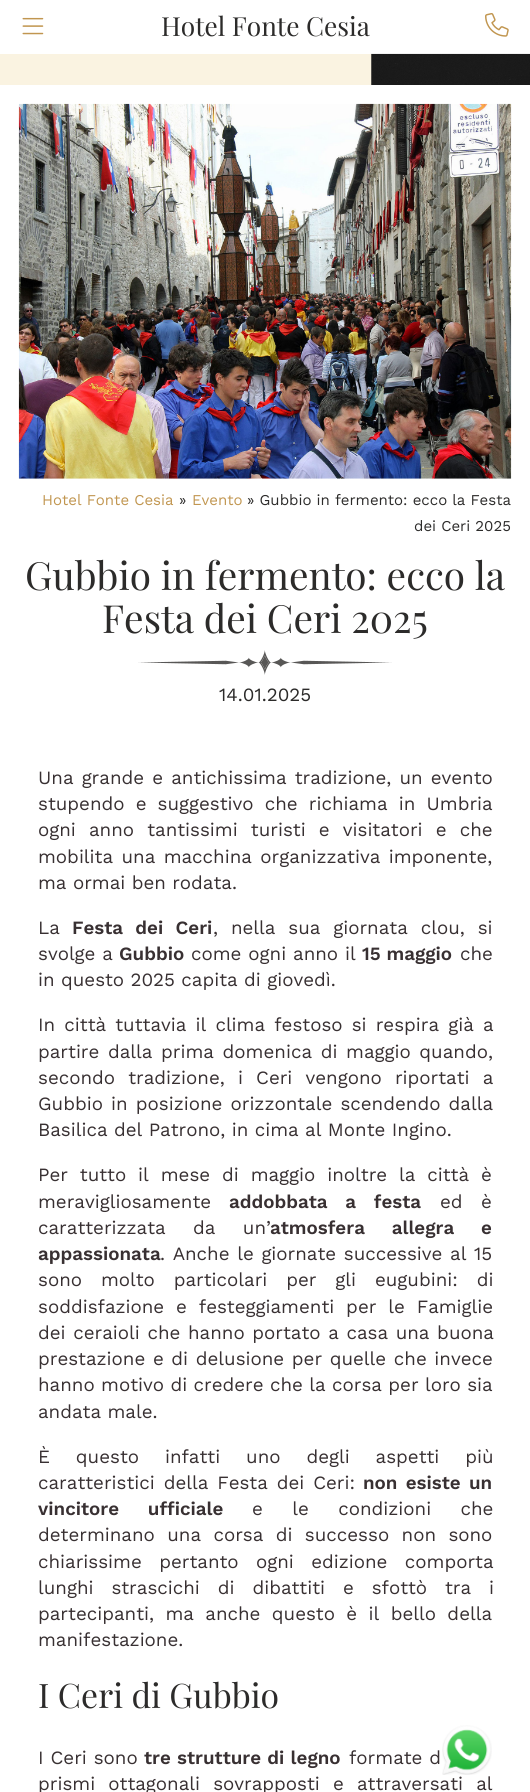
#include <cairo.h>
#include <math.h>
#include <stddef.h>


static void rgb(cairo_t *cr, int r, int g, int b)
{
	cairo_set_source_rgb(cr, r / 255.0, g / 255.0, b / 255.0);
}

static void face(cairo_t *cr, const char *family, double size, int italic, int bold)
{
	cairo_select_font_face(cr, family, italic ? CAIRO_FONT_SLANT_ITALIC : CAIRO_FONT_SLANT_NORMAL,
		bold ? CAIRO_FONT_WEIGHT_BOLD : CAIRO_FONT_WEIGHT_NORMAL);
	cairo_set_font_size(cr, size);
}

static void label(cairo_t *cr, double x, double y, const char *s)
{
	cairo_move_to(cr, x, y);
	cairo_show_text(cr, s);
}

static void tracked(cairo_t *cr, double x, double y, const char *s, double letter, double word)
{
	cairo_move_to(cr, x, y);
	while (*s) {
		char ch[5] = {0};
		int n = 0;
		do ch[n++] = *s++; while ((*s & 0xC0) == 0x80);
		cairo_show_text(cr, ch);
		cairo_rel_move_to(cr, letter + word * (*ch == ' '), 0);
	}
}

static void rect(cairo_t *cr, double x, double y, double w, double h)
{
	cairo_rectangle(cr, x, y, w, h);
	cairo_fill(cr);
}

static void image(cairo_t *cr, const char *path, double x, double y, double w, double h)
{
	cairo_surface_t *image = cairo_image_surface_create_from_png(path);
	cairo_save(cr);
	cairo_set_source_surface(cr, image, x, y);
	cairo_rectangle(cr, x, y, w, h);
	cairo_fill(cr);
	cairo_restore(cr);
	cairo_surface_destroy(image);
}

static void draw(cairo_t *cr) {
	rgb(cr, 255, 255, 255);
	cairo_paint(cr);
	image(cr, "image0.png", 22, 17, 22, 18);
	face(cr, "Playfair Display", 26.25, 0, 0);
	rgb(cr, 44, 43, 42);
	label(cr, 161, 36, "Hotel Fonte Cesia");
	image(cr, "image1.png", 485, 13, 24, 24);
	rgb(cr, 250, 243, 225);
	rect(cr, 0, 54, 372, 31);
	image(cr, "image2.png", 371, 53, 159, 32);
	image(cr, "image3.png", 18, 103, 494, 376);
	face(cr, "Work Sans", 15, 0, 0);
	rgb(cr, 193, 150, 80);
	label(cr, 42, 505, "Hotel Fonte Cesia");
	rgb(cr, 44, 43, 42);
	label(cr, 179, 505, "»");
	rgb(cr, 193, 150, 80);
	label(cr, 192, 505, "Evento");
	rgb(cr, 44, 43, 42);
	label(cr, 247, 505, "» Gubbio in fermento: ecco la Festa");
	label(cr, 414, 531, "dei Ceri 2025");
	face(cr, "Playfair Display", 38.75, 0, 0);
	label(cr, 25, 590, "Gubbio in fermento: ecco la");
	label(cr, 102, 633, "Festa dei Ceri 2025");
	image(cr, "image4.png", 138, 650, 254, 25);
	face(cr, "Work Sans", 18.75, 0, 0);
	label(cr, 219, 701, "14.01.2025");
	rgb(cr, 56, 48, 50);
	tracked(cr, 38, 784, "Una grande e antichissima tradizione, un evento", 0, 1.75);
	tracked(cr, 38, 810, "stupendo e suggestivo che richiama in Umbria", 0, 4.75);
	tracked(cr, 38, 836, "ogni anno tantissimi turisti e visitatori e che", 0, 6.75);
	tracked(cr, 38, 863, "mobilita una macchina organizzativa imponente,", 0, 2);
	label(cr, 38, 889, "ma ormai ben rodata.");
	label(cr, 38, 934, "La");
	face(cr, "Work Sans SemiBold", 18.75, 0, 0);
	tracked(cr, 72, 934, "Festa dei Ceri", 0, 6.5);
	face(cr, "Work Sans", 18.75, 0, 0);
	tracked(cr, 213, 934, ", nella sua giornata clou, si", 0, 6.5);
	tracked(cr, 38, 960, "svolge a", 0, 0.5);
	face(cr, "Work Sans SemiBold", 18.75, 0, 0);
	label(cr, 119, 960, "Gubbio");
	face(cr, "Work Sans", 18.75, 0, 0);
	tracked(cr, 191, 960, "come ogni anno il", 0, 0.5);
	face(cr, "Work Sans SemiBold", 18.75, 0, 0);
	label(cr, 362, 960, "15 maggio");
	face(cr, "Work Sans", 18.75, 0, 0);
	label(cr, 460, 960, "che");
	label(cr, 38, 986, "in questo 2025 capita di giovedì.");
	tracked(cr, 38, 1031, "In città tuttavia il clima festoso si respira già a", 0, 2.75);
	tracked(cr, 38, 1058, "partire dalla prima domenica di maggio quando,", 0, 2.25);
	tracked(cr, 38, 1084, "secondo tradizione, i Ceri vengono riportati a", 0, 6.75);
	tracked(cr, 38, 1110, "Gubbio in posizione orizzontale scendendo dalla", 0, 1.75);
	label(cr, 38, 1136, "Basilica del Patrono, in cima al Monte Ingino.");
	tracked(cr, 38, 1181, "Per tutto il mese di maggio inoltre la città è", 0, 5.5);
	label(cr, 38, 1208, "meravigliosamente");
	face(cr, "Work Sans SemiBold", 18.75, 0, 0);
	tracked(cr, 229, 1208, "addobbata a festa", 0, 12);
	face(cr, "Work Sans", 18.75, 0, 0);
	tracked(cr, 440, 1208, "ed è", 0, 12);
	tracked(cr, 38, 1234, "caratterizzata da un’", 0, 21);
	face(cr, "Work Sans SemiBold", 18.75, 0, 0);
	tracked(cr, 270, 1234, "atmosfera allegra e", 0, 21);
	label(cr, 38, 1260, "appassionata");
	face(cr, "Work Sans", 18.75, 0, 0);
	tracked(cr, 160, 1260, ". Anche le giornate successive al 15", 0, 1.25);
	tracked(cr, 38, 1286, "sono molto particolari per gli eugubini: di", 0, 12.5);
	tracked(cr, 38, 1313, "soddisfazione e festeggiamenti per le Famiglie", 0, 5.5);
	tracked(cr, 38, 1339, "dei ceraioli che hanno portato a casa una buona", 0, 1.25);
	tracked(cr, 38, 1365, "prestazione e di delusione per quelle che invece", 0, 1.25);
	label(cr, 38, 1391, "hanno motivo di credere che la corsa per loro sia");
	label(cr, 38, 1418, "andata male.");
	tracked(cr, 38, 1463, "È questo infatti uno degli aspetti più", 0, 19.5);
	tracked(cr, 38, 1489, "caratteristici della Festa dei Ceri:", 0, 2.5);
	face(cr, "Work Sans SemiBold", 18.75, 0, 0);
	tracked(cr, 363, 1489, "non esiste un", 0, 2.5);
	tracked(cr, 38, 1515, "vincitore ufficiale", 0, 23);
	face(cr, "Work Sans", 18.75, 0, 0);
	tracked(cr, 252, 1515, "e le condizioni che", 0, 23);
	tracked(cr, 38, 1541, "determinano una corsa di successo non sono", 0, 6);
	tracked(cr, 38, 1568, "chiarissime pertanto ogni edizione comporta", 0, 11);
	tracked(cr, 38, 1594, "lunghi strascichi di dibattiti e sfottò tra i", 0, 11.5);
	tracked(cr, 38, 1620, "partecipanti, ma anche questo è il bello della", 0, 5);
	label(cr, 38, 1646, "manifestazione.");
	face(cr, "Playfair Display", 33.75, 0, 0);
	rgb(cr, 44, 43, 42);
	label(cr, 38, 1708, "I Ceri di Gubbio");
	face(cr, "Work Sans", 18.75, 0, 0);
	rgb(cr, 56, 48, 50);
	tracked(cr, 38, 1764, "I Ceri sono", 0, 0.5);
	face(cr, "Work Sans SemiBold", 18.75, 0, 0);
	tracked(cr, 144, 1764, "tre strutture di legno", 0, 0.5);
	face(cr, "Work Sans", 18.75, 0, 0);
	tracked(cr, 349, 1764, "formate d", 0, 0.5);
	tracked(cr, 38, 1790, "prismi ottagonali sovrapposti e attraversati al", 0, 6.75);
	image(cr, "image5.png", 442, 1725, 50, 50);
}

int main(void) {
	cairo_surface_t *surface = cairo_image_surface_create(CAIRO_FORMAT_RGB24, 530, 1792);
	cairo_t *cr = cairo_create(surface);
	cairo_font_options_t *options = cairo_font_options_create();
	cairo_font_options_set_hint_metrics(options, CAIRO_HINT_METRICS_OFF);
	cairo_font_options_set_hint_style(options, CAIRO_HINT_STYLE_NONE);
	cairo_set_font_options(cr, options);
	cairo_set_miter_limit(cr, 4);
	draw(cr);
	cairo_surface_write_to_png(surface, "render.png");
	cairo_font_options_destroy(options);
	cairo_destroy(cr);
	cairo_surface_destroy(surface);
	return 0;
}
